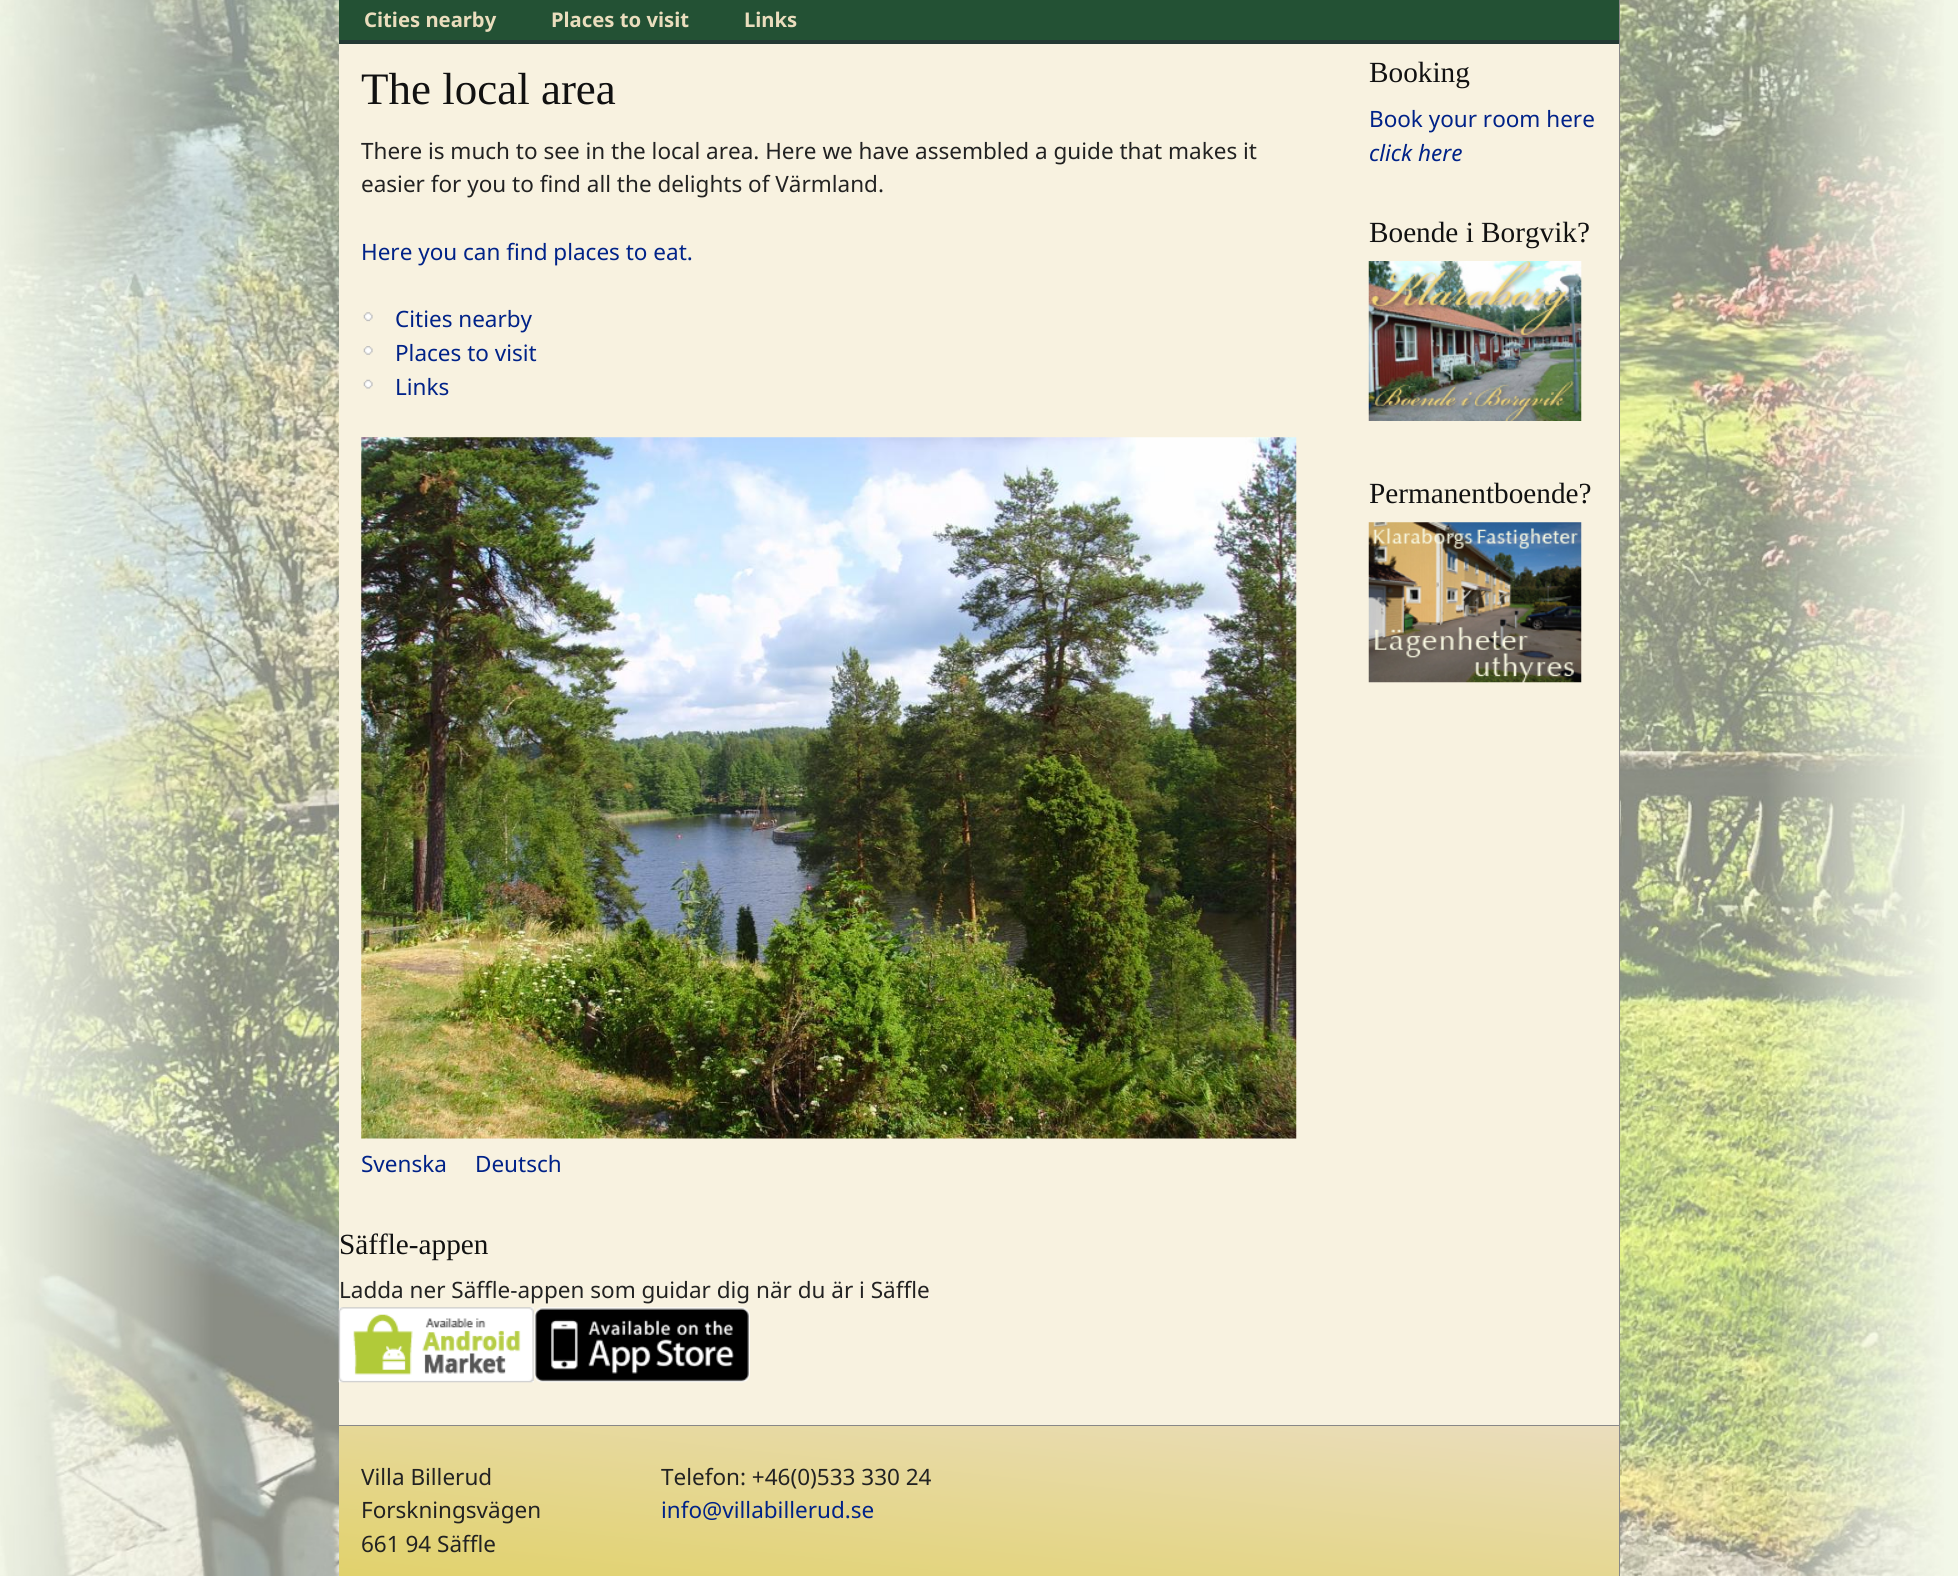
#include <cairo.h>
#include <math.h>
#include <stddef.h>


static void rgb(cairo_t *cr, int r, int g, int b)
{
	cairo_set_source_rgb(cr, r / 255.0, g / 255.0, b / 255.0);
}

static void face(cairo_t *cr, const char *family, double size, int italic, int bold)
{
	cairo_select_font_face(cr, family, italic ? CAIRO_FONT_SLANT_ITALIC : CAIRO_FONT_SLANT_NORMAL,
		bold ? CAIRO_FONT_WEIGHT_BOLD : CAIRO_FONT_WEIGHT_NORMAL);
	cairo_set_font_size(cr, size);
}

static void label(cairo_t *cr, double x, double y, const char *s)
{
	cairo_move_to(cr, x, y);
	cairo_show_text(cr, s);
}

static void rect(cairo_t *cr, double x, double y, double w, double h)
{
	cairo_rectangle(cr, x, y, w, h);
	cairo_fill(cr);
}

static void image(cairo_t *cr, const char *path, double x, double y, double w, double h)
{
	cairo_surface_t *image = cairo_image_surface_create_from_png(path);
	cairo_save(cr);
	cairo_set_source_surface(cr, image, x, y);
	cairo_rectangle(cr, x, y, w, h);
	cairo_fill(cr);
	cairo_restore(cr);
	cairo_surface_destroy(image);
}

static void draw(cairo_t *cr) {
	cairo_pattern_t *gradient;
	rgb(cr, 242, 247, 232);
	cairo_paint(cr);
	image(cr, "image0.png", 0, 0, 1944, 1576);
	rgb(cr, 136, 136, 136);
	rect(cr, 1619, 0, 1, 1576);
	rgb(cr, 35, 81, 52);
	rect(cr, 339, 0, 1280, 40);
	rgb(cr, 36, 57, 52);
	rect(cr, 339, 40, 1280, 4);
	face(cr, "Noto Sans", 20.25, 0, 1);
	rgb(cr, 234, 221, 189);
	label(cr, 364, 27, "Cities nearby");
	label(cr, 551, 27, "Places to visit");
	label(cr, 744, 27, "Links");
	rgb(cr, 248, 242, 224);
	rect(cr, 339, 44, 1280, 1381);
	face(cr, "Liberation Serif", 45, 0, 0);
	rgb(cr, 17, 17, 17);
	label(cr, 361, 104, "The local area");
	face(cr, "Noto Sans", 22.5, 0, 0);
	rgb(cr, 34, 34, 34);
	label(cr, 361, 159, "There is much to see in the local area. Here we have assembled a guide that makes it");
	label(cr, 361, 192, "easier for you to find all the delights of Värmland.");
	rgb(cr, 0, 34, 136);
	label(cr, 361, 260, "Here you can find places to eat.");
	image(cr, "image1.png", 363, 312, 10, 10);
	label(cr, 395, 327, "Cities nearby");
	image(cr, "image2.png", 363, 346, 10, 9);
	label(cr, 395, 361, "Places to visit");
	image(cr, "image3.png", 363, 379, 10, 10);
	label(cr, 395, 395, "Links");
	image(cr, "image4.png", 361, 437, 936, 702);
	label(cr, 361, 1172, "Svenska");
	label(cr, 475, 1172, "Deutsch");
	face(cr, "Liberation Serif", 29.25, 0, 0);
	rgb(cr, 17, 17, 17);
	label(cr, 339, 1254, "Säffle-appen");
	face(cr, "Noto Sans", 22.5, 0, 0);
	rgb(cr, 34, 34, 34);
	label(cr, 339, 1298, "Ladda ner Säffle-appen som guidar dig när du är i Säffle");
	image(cr, "image5.png", 338, 1307, 196, 76);
	image(cr, "image6.png", 533, 1307, 217, 76);
	face(cr, "Liberation Serif", 29.25, 0, 0);
	rgb(cr, 17, 17, 17);
	label(cr, 1369, 82, "Booking");
	face(cr, "Noto Sans", 22.5, 0, 0);
	rgb(cr, 0, 34, 136);
	label(cr, 1369, 127, "Book your room here");
	face(cr, "Noto Sans", 22.5, 1, 0);
	label(cr, 1369, 161, "click here");
	face(cr, "Liberation Serif", 29.25, 0, 0);
	rgb(cr, 17, 17, 17);
	label(cr, 1369, 242, "Boende i Borgvik?");
	image(cr, "image7.png", 1368, 261, 214, 160);
	label(cr, 1369, 503, "Permanentboende?");
	image(cr, "image8.png", 1368, 522, 214, 161);
	gradient = cairo_pattern_create_linear(962, 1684, 996, 1361);
	cairo_pattern_add_color_stop_rgba(gradient, 0, 0.878, 0.816, 0.376, 1);
	cairo_pattern_add_color_stop_rgba(gradient, 1, 0.918, 0.867, 0.741, 1);
	cairo_set_source(cr, gradient);
	cairo_pattern_destroy(gradient);
	rect(cr, 339, 1426, 1280, 150);
	rgb(cr, 136, 136, 136);
	rect(cr, 339, 1425, 1280, 1);
	face(cr, "Noto Sans", 22.5, 0, 0);
	rgb(cr, 34, 34, 34);
	label(cr, 361, 1485, "Villa Billerud");
	label(cr, 361, 1518, "Forskningsvägen");
	label(cr, 361, 1552, "661 94 Säffle");
	label(cr, 661, 1485, "Telefon: +46(0)533 330 24");
	rgb(cr, 0, 34, 136);
	label(cr, 661, 1518, "info@villabillerud.se");
}

int main(void) {
	cairo_surface_t *surface = cairo_image_surface_create(CAIRO_FORMAT_RGB24, 1958, 1576);
	cairo_t *cr = cairo_create(surface);
	cairo_font_options_t *options = cairo_font_options_create();
	cairo_font_options_set_hint_metrics(options, CAIRO_HINT_METRICS_OFF);
	cairo_font_options_set_hint_style(options, CAIRO_HINT_STYLE_NONE);
	cairo_set_font_options(cr, options);
	cairo_set_miter_limit(cr, 4);
	draw(cr);
	cairo_surface_write_to_png(surface, "render.png");
	cairo_font_options_destroy(options);
	cairo_destroy(cr);
	cairo_surface_destroy(surface);
	return 0;
}
